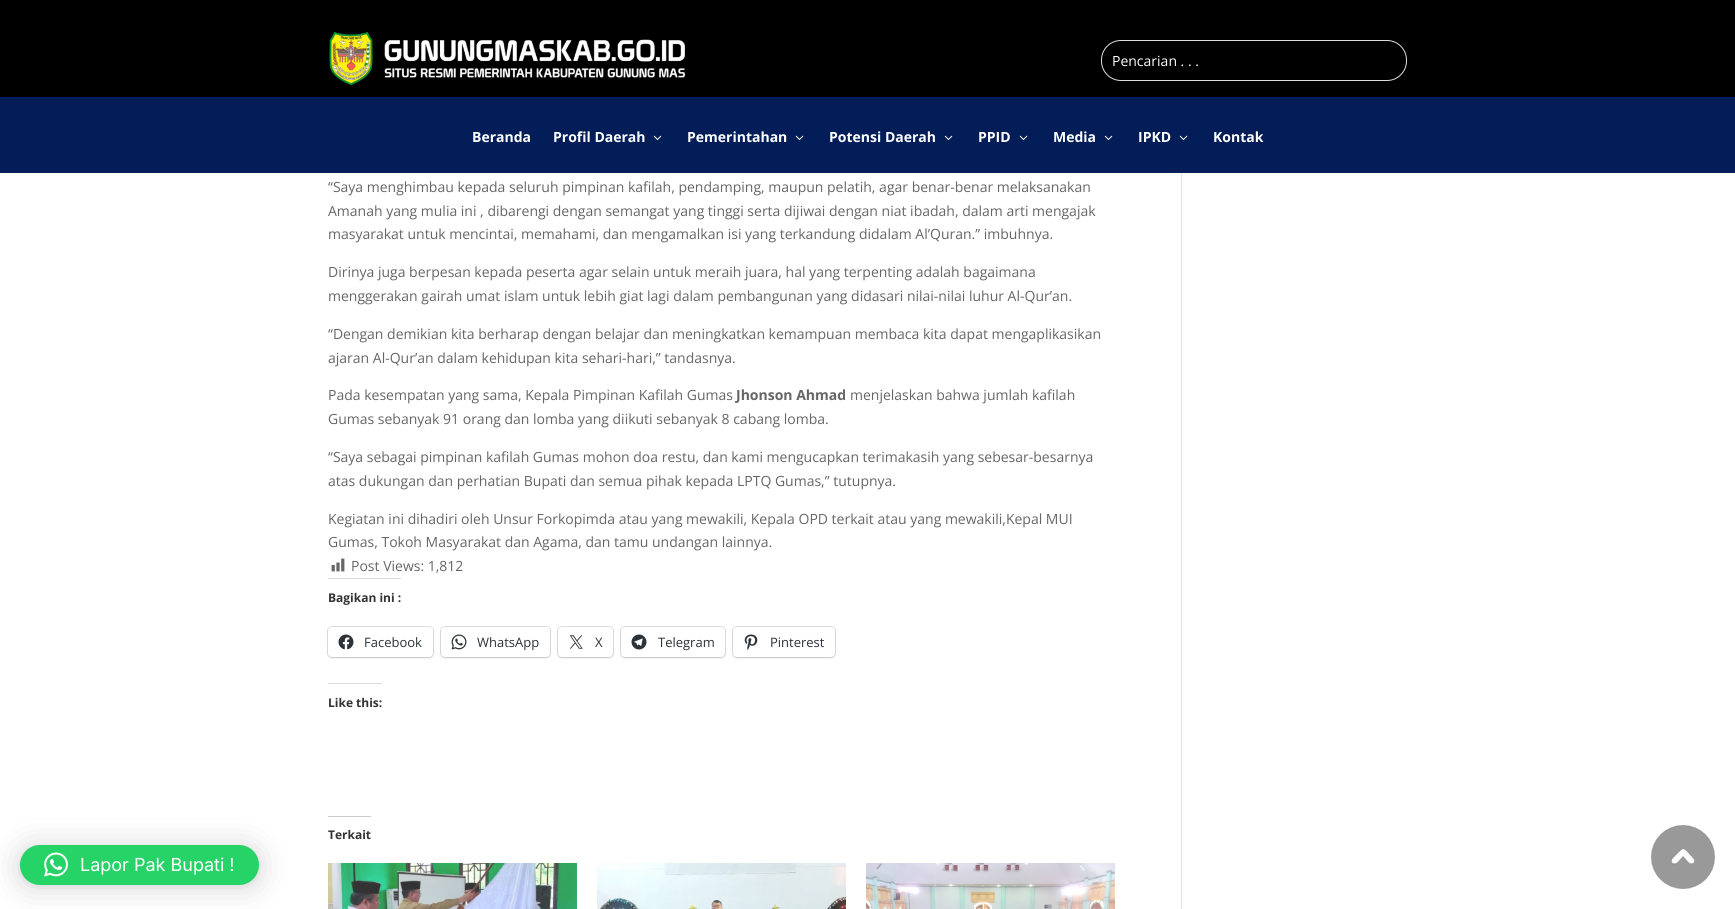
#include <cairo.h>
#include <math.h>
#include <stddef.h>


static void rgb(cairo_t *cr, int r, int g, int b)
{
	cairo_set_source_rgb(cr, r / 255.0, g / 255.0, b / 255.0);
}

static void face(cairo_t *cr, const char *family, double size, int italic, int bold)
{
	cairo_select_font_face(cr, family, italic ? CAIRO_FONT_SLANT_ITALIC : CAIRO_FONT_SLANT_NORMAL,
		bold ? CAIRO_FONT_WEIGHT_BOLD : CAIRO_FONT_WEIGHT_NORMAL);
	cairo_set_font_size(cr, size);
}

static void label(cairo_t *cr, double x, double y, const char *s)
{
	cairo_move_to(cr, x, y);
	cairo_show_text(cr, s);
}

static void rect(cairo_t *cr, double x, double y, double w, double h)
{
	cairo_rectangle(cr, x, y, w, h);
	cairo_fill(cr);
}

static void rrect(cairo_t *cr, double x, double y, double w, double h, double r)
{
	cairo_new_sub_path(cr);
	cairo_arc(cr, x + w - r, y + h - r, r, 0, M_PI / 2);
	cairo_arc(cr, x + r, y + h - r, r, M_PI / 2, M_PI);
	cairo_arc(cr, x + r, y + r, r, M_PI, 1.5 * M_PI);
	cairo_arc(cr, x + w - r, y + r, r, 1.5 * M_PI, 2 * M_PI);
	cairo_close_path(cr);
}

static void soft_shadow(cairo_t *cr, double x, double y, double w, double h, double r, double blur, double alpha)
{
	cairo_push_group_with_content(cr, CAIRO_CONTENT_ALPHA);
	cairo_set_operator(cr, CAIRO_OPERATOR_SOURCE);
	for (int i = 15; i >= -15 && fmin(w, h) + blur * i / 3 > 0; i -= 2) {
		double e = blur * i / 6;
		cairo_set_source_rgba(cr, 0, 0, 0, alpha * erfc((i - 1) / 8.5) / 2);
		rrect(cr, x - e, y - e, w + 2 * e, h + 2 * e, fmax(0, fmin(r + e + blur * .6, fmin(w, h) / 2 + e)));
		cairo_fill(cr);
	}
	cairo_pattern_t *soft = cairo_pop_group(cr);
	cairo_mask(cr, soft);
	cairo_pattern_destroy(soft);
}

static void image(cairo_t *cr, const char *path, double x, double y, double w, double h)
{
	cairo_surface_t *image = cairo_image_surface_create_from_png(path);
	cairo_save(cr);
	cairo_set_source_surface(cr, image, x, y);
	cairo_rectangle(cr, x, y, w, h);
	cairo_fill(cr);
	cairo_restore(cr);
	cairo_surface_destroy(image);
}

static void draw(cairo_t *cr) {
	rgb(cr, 255, 255, 255);
	cairo_paint(cr);
	rgb(cr, 0, 0, 0);
	rect(cr, 0, 0, 1735, 97);
	image(cr, "image0.png", 329, 31, 356, 55);
	rrect(cr, 1101.5, 40.5, 305, 40, 19.5);
	rgb(cr, 221, 221, 221);
	cairo_set_line_width(cr, 1);
	cairo_stroke(cr);
	face(cr, "Open Sans", 14, 0, 0);
	rgb(cr, 255, 255, 255);
	label(cr, 1112, 66, "Pencarian . . .");
	rgb(cr, 3, 29, 89);
	rect(cr, 0, 97, 1735, 76);
	face(cr, "Open Sans", 14, 0, 1);
	rgb(cr, 255, 255, 255);
	label(cr, 472, 142, "Beranda");
	label(cr, 553, 142, "Profil Daerah");
	image(cr, "image1.png", 653, 135, 9, 5);
	label(cr, 687, 142, "Pemerintahan");
	image(cr, "image1.png", 795, 135, 9, 5);
	label(cr, 829, 142, "Potensi Daerah");
	image(cr, "image1.png", 944, 135, 9, 5);
	label(cr, 978, 142, "PPID");
	image(cr, "image1.png", 1019, 135, 9, 5);
	label(cr, 1053, 142, "Media");
	image(cr, "image1.png", 1104, 135, 9, 5);
	label(cr, 1138, 142, "IPKD");
	image(cr, "image1.png", 1179, 135, 9, 5);
	label(cr, 1213, 142, "Kontak");
	face(cr, "Open Sans", 14, 0, 0);
	rgb(cr, 102, 102, 102);
	label(cr, 328, 192, "“Saya menghimbau kepada seluruh pimpinan kafilah, pendamping, maupun pelatih, agar benar-benar melaksanakan");
	label(cr, 328, 216, "Amanah yang mulia ini , dibarengi dengan semangat yang tinggi serta dijiwai dengan niat ibadah, dalam arti mengajak");
	label(cr, 328, 239, "masyarakat untuk mencintai, memahami, dan mengamalkan isi yang terkandung didalam Al’Quran.” imbuhnya.");
	label(cr, 328, 277, "Dirinya juga berpesan kepada peserta agar selain untuk meraih juara, hal yang terpenting adalah bagaimana");
	label(cr, 328, 301, "menggerakan gairah umat islam untuk lebih giat lagi dalam pembangunan yang didasari nilai-nilai luhur Al-Qur’an.");
	label(cr, 328, 339, "“Dengan demikian kita berharap dengan belajar dan meningkatkan kemampuan membaca kita dapat mengaplikasikan");
	label(cr, 328, 363, "ajaran Al-Qur’an dalam kehidupan kita sehari-hari,” tandasnya.");
	label(cr, 328, 400, "Pada kesempatan yang sama, Kepala Pimpinan Kafilah Gumas");
	face(cr, "Open Sans", 14, 0, 1);
	label(cr, 736, 400, "Jhonson Ahmad");
	face(cr, "Open Sans", 14, 0, 0);
	label(cr, 850, 400, "menjelaskan bahwa jumlah kafilah");
	label(cr, 328, 424, "Gumas sebanyak 91 orang dan lomba yang diikuti sebanyak 8 cabang lomba.");
	label(cr, 328, 462, "“Saya sebagai pimpinan kafilah Gumas mohon doa restu, dan kami mengucapkan terimakasih yang sebesar-besarnya");
	label(cr, 328, 486, "atas dukungan dan perhatian Bupati dan semua pihak kepada LPTQ Gumas,” tutupnya.");
	label(cr, 328, 524, "Kegiatan ini dihadiri oleh Unsur Forkopimda atau yang mewakili, Kepala OPD terkait atau yang mewakili,Kepal MUI");
	label(cr, 328, 547, "Gumas, Tokoh Masyarakat dan Agama, dan tamu undangan lainnya.");
	image(cr, "image2.png", 331, 558, 14, 14);
	label(cr, 351, 571, "Post Views: 1,812");
	rgb(cr, 220, 220, 222);
	rect(cr, 328, 578, 73, 1);
	face(cr, "Open Sans", 12, 0, 1);
	rgb(cr, 51, 51, 51);
	label(cr, 328, 602, "Bagikan ini :");
	rrect(cr, 327.5, 626.5, 106, 31, 4.5);
	rgb(cr, 224, 224, 224);
	cairo_stroke(cr);
	rgb(cr, 0, 0, 0);
	soft_shadow(cr, 328, 628, 105, 30, 4, 1, 0.12);
	rgb(cr, 255, 255, 255);
	rrect(cr, 328, 627, 105, 30, 4);
	cairo_fill(cr);
	image(cr, "image3.png", 338, 634, 16, 16);
	face(cr, "Open Sans", 13, 0, 0);
	rgb(cr, 44, 51, 56);
	label(cr, 364, 647, "Facebook");
	rrect(cr, 440.5, 626.5, 110, 31, 4.5);
	rgb(cr, 224, 224, 224);
	cairo_stroke(cr);
	rgb(cr, 0, 0, 0);
	soft_shadow(cr, 441, 628, 109, 30, 4, 1, 0.12);
	rgb(cr, 255, 255, 255);
	rrect(cr, 441, 627, 109, 30, 4);
	cairo_fill(cr);
	image(cr, "image4.png", 451, 634, 16, 16);
	rgb(cr, 44, 51, 56);
	label(cr, 477, 647, "WhatsApp");
	rrect(cr, 557.5, 626.5, 56, 31, 4.5);
	rgb(cr, 224, 224, 224);
	cairo_stroke(cr);
	rgb(cr, 0, 0, 0);
	soft_shadow(cr, 558, 628, 55, 30, 4, 1, 0.12);
	rgb(cr, 255, 255, 255);
	rrect(cr, 558, 627, 55, 30, 4);
	cairo_fill(cr);
	image(cr, "image5.png", 569, 635, 14, 14);
	rgb(cr, 44, 51, 56);
	label(cr, 595, 647, "X");
	rrect(cr, 620.5, 626.5, 105, 31, 4.5);
	rgb(cr, 224, 224, 224);
	cairo_stroke(cr);
	rgb(cr, 0, 0, 0);
	soft_shadow(cr, 621, 628, 104, 30, 4, 1, 0.12);
	rgb(cr, 255, 255, 255);
	rrect(cr, 621, 627, 104, 30, 4);
	cairo_fill(cr);
	image(cr, "image6.png", 631, 634, 16, 16);
	rgb(cr, 44, 51, 56);
	label(cr, 658, 647, "Telegram");
	rrect(cr, 732.5, 626.5, 103, 31, 4.5);
	rgb(cr, 224, 224, 224);
	cairo_stroke(cr);
	rgb(cr, 0, 0, 0);
	soft_shadow(cr, 733, 628, 102, 30, 4, 1, 0.12);
	rgb(cr, 255, 255, 255);
	rrect(cr, 733, 627, 102, 30, 4);
	cairo_fill(cr);
	image(cr, "image7.png", 744, 634, 14, 16);
	rgb(cr, 44, 51, 56);
	label(cr, 770, 647, "Pinterest");
	rgb(cr, 220, 220, 222);
	rect(cr, 328, 683, 54, 1);
	face(cr, "Open Sans", 12, 0, 1);
	rgb(cr, 51, 51, 51);
	label(cr, 328, 707, "Like this:");
	rgb(cr, 204, 204, 204);
	rect(cr, 328, 816, 43, 1);
	rgb(cr, 51, 51, 51);
	label(cr, 328, 839, "Terkait");
	image(cr, "image8.png", 328, 863, 249, 46);
	image(cr, "image9.png", 597, 863, 249, 46);
	image(cr, "image10.png", 866, 863, 249, 46);
	rgb(cr, 226, 226, 226);
	rect(cr, 1181, 173, 1, 736);
	rgb(cr, 0, 0, 0);
	soft_shadow(cr, 20, 847, 239, 40, 20, 16, 0.16);
	soft_shadow(cr, 20, 846, 239, 40, 20, 3, 0.06);
	rgb(cr, 37, 211, 102);
	rrect(cr, 20, 845, 239, 40, 20);
	cairo_fill(cr);
	image(cr, "image11.png", 44, 852, 24, 25);
	face(cr, "Inter", 18, 0, 0);
	rgb(cr, 255, 255, 255);
	label(cr, 80, 871, "Lapor Pak Bupati !");
	image(cr, "image12.png", 1651, 825, 64, 64);
}

int main(void) {
	cairo_surface_t *surface = cairo_image_surface_create(CAIRO_FORMAT_RGB24, 1735, 909);
	cairo_t *cr = cairo_create(surface);
	cairo_font_options_t *options = cairo_font_options_create();
	cairo_font_options_set_hint_metrics(options, CAIRO_HINT_METRICS_OFF);
	cairo_font_options_set_hint_style(options, CAIRO_HINT_STYLE_NONE);
	cairo_set_font_options(cr, options);
	cairo_set_miter_limit(cr, 4);
	draw(cr);
	cairo_surface_write_to_png(surface, "render.png");
	cairo_font_options_destroy(options);
	cairo_destroy(cr);
	cairo_surface_destroy(surface);
	return 0;
}
